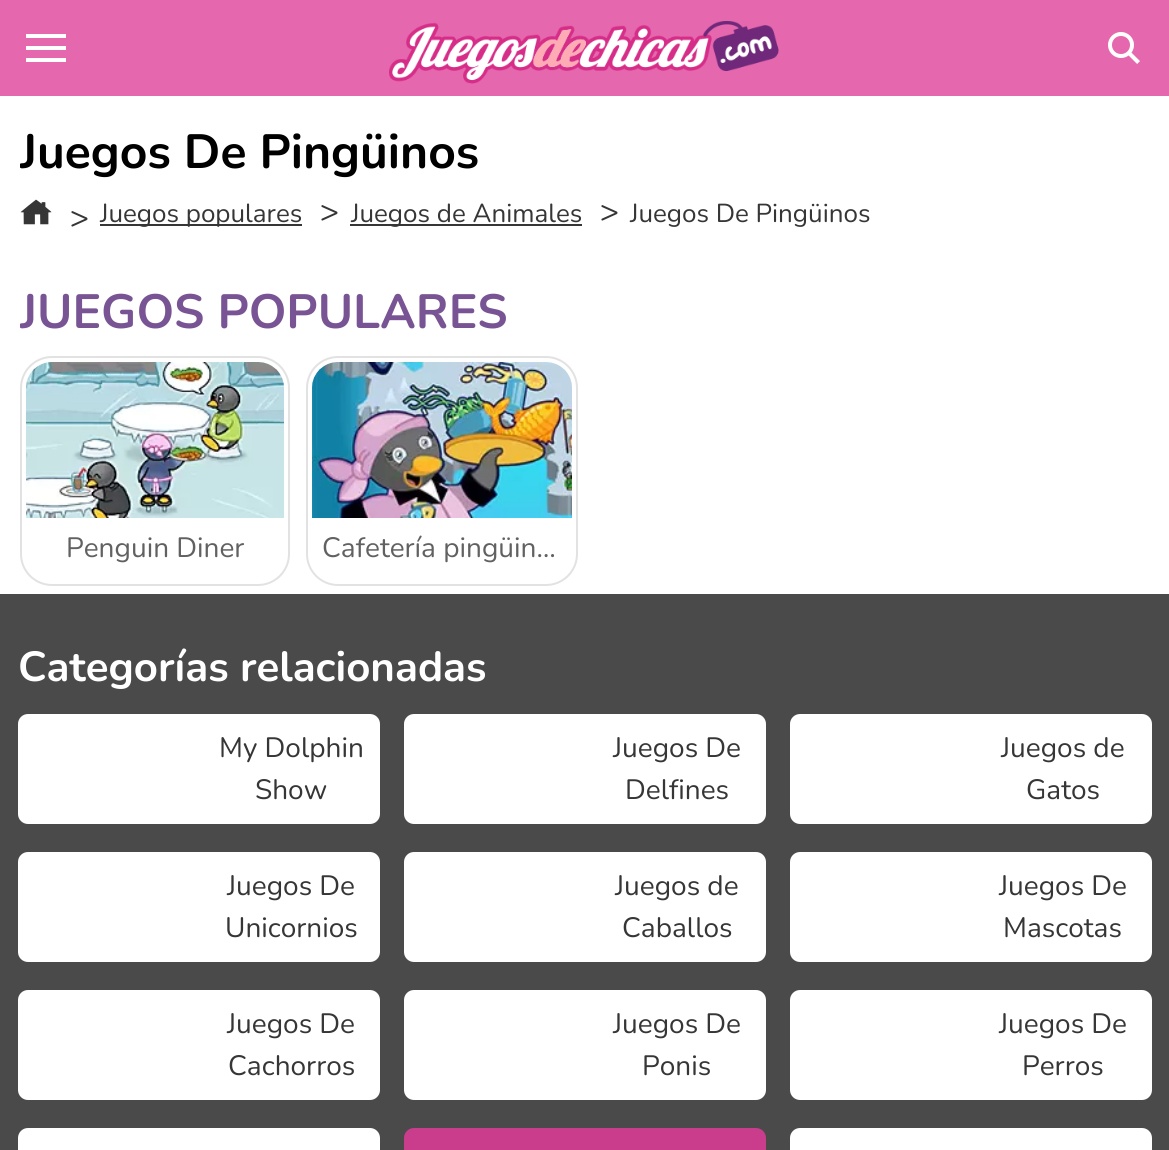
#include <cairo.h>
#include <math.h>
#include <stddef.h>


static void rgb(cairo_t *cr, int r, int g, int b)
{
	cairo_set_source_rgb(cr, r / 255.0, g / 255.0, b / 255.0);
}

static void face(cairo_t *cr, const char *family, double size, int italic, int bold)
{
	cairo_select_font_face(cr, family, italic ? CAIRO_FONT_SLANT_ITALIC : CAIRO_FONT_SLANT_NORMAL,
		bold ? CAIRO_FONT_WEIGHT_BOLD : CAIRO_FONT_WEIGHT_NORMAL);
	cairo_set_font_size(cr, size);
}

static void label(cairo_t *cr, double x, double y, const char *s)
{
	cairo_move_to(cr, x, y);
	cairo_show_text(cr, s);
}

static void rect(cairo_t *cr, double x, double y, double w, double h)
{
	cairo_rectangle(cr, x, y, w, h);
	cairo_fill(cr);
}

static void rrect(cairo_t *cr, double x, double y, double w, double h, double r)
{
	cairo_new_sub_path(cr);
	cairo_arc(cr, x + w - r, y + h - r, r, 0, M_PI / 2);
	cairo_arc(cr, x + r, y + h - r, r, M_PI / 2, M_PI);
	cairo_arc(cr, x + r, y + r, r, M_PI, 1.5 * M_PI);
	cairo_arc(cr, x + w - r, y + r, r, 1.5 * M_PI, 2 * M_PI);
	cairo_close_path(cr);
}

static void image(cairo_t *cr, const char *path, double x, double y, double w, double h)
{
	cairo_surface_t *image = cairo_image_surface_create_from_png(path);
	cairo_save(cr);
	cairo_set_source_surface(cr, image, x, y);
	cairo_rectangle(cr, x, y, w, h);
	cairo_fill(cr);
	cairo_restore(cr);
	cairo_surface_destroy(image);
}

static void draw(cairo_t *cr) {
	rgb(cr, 229, 103, 174);
	cairo_paint(cr);
	rgb(cr, 255, 255, 255);
	rect(cr, 26, 34, 40, 4);
	rect(cr, 26, 46, 40, 4);
	rect(cr, 26, 58, 40, 4);
	image(cr, "image0.png", 389, 21, 390, 63);
	image(cr, "image1.png", 1108, 32, 32, 32);
	rect(cr, 0, 96, 1169, 498);
	cairo_save(cr);
	cairo_rectangle(cr, 20, 116, 460, 72);
	cairo_clip(cr);
	face(cr, "Nunito", 48, 0, 1);
	rgb(cr, 0, 0, 0);
	label(cr, 20, 168, "Juegos De Pingüinos");
	cairo_restore(cr);
	image(cr, "image2.png", 20, 199, 32, 26);
	face(cr, "Nunito", 32, 0, 0);
	rgb(cr, 54, 54, 54);
	label(cr, 70, 228, ">");
	rect(cr, 100, 224, 202, 2);
	face(cr, "Nunito", 26, 0, 0);
	label(cr, 100, 222, "Juegos populares");
	face(cr, "Nunito", 32, 0, 0);
	label(cr, 320, 222, ">");
	rect(cr, 350, 224, 232, 2);
	face(cr, "Nunito", 26, 0, 0);
	label(cr, 351, 222, "Juegos de Animales");
	face(cr, "Nunito", 32, 0, 0);
	label(cr, 600, 222, ">");
	face(cr, "Nunito", 26, 0, 0);
	label(cr, 630, 222, "Juegos De Pingüinos");
	cairo_save(cr);
	cairo_rectangle(cr, 20, 276, 488, 72);
	cairo_clip(cr);
	face(cr, "Nunito", 48, 0, 1);
	rgb(cr, 120, 84, 148);
	label(cr, 20, 328, "JUEGOS POPULARES");
	cairo_restore(cr);
	rrect(cr, 21, 357, 268, 228, 31);
	rgb(cr, 226, 226, 226);
	cairo_stroke(cr);
	image(cr, "image3.png", 26, 362, 258, 156);
	face(cr, "Nunito", 28, 0, 0);
	rgb(cr, 97, 97, 97);
	label(cr, 66, 557, "Penguin Diner");
	rrect(cr, 307, 357, 270, 228, 31);
	rgb(cr, 226, 226, 226);
	cairo_stroke(cr);
	image(cr, "image4.png", 312, 362, 260, 156);
	rgb(cr, 97, 97, 97);
	label(cr, 322, 557, "Cafetería pingüin…");
	rgb(cr, 74, 74, 74);
	rect(cr, 0, 594, 1169, 556);
	face(cr, "Nunito", 42, 0, 1);
	rgb(cr, 255, 255, 255);
	label(cr, 18, 681, "Categorías relacionadas");
	rrect(cr, 18, 714, 362, 110, 10);
	cairo_fill(cr);
	face(cr, "Nunito", 28, 0, 0);
	rgb(cr, 54, 54, 54);
	label(cr, 219, 757, "My Dolphin");
	label(cr, 255, 799, "Show");
	rgb(cr, 255, 255, 255);
	rrect(cr, 404, 714, 362, 110, 10);
	cairo_fill(cr);
	rgb(cr, 54, 54, 54);
	label(cr, 613, 757, "Juegos De");
	label(cr, 625, 799, "Delfines");
	rgb(cr, 255, 255, 255);
	rrect(cr, 790, 714, 362, 110, 10);
	cairo_fill(cr);
	rgb(cr, 54, 54, 54);
	label(cr, 1001, 757, "Juegos de");
	label(cr, 1026, 799, "Gatos");
	rgb(cr, 255, 255, 255);
	rrect(cr, 18, 852, 362, 110, 10);
	cairo_fill(cr);
	rgb(cr, 54, 54, 54);
	label(cr, 227, 895, "Juegos De");
	label(cr, 225, 937, "Unicornios");
	rgb(cr, 255, 255, 255);
	rrect(cr, 404, 852, 362, 110, 10);
	cairo_fill(cr);
	rgb(cr, 54, 54, 54);
	label(cr, 615, 895, "Juegos de");
	label(cr, 622, 937, "Caballos");
	rgb(cr, 255, 255, 255);
	rrect(cr, 790, 852, 362, 110, 10);
	cairo_fill(cr);
	rgb(cr, 54, 54, 54);
	label(cr, 999, 895, "Juegos De");
	label(cr, 1003, 937, "Mascotas");
	rgb(cr, 255, 255, 255);
	rrect(cr, 18, 990, 362, 110, 10);
	cairo_fill(cr);
	rgb(cr, 54, 54, 54);
	label(cr, 227, 1033, "Juegos De");
	label(cr, 228, 1075, "Cachorros");
	rgb(cr, 255, 255, 255);
	rrect(cr, 404, 990, 362, 110, 10);
	cairo_fill(cr);
	rgb(cr, 54, 54, 54);
	label(cr, 613, 1033, "Juegos De");
	label(cr, 642, 1075, "Ponis");
	rgb(cr, 255, 255, 255);
	rrect(cr, 790, 990, 362, 110, 10);
	cairo_fill(cr);
	rgb(cr, 54, 54, 54);
	label(cr, 999, 1033, "Juegos De");
	label(cr, 1022, 1075, "Perros");
	rgb(cr, 255, 255, 255);
	rrect(cr, 18, 1128, 362, 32, 10);
	cairo_fill(cr);
	rgb(cr, 202, 60, 140);
	rrect(cr, 404, 1128, 362, 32, 10);
	cairo_fill(cr);
	rgb(cr, 255, 255, 255);
	rrect(cr, 790, 1128, 362, 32, 10);
	cairo_fill(cr);
}

int main(void) {
	cairo_surface_t *surface = cairo_image_surface_create(CAIRO_FORMAT_RGB24, 1169, 1150);
	cairo_t *cr = cairo_create(surface);
	cairo_font_options_t *options = cairo_font_options_create();
	cairo_font_options_set_hint_metrics(options, CAIRO_HINT_METRICS_OFF);
	cairo_font_options_set_hint_style(options, CAIRO_HINT_STYLE_NONE);
	cairo_set_font_options(cr, options);
	cairo_set_miter_limit(cr, 4);
	draw(cr);
	cairo_surface_write_to_png(surface, "render.png");
	cairo_font_options_destroy(options);
	cairo_destroy(cr);
	cairo_surface_destroy(surface);
	return 0;
}
